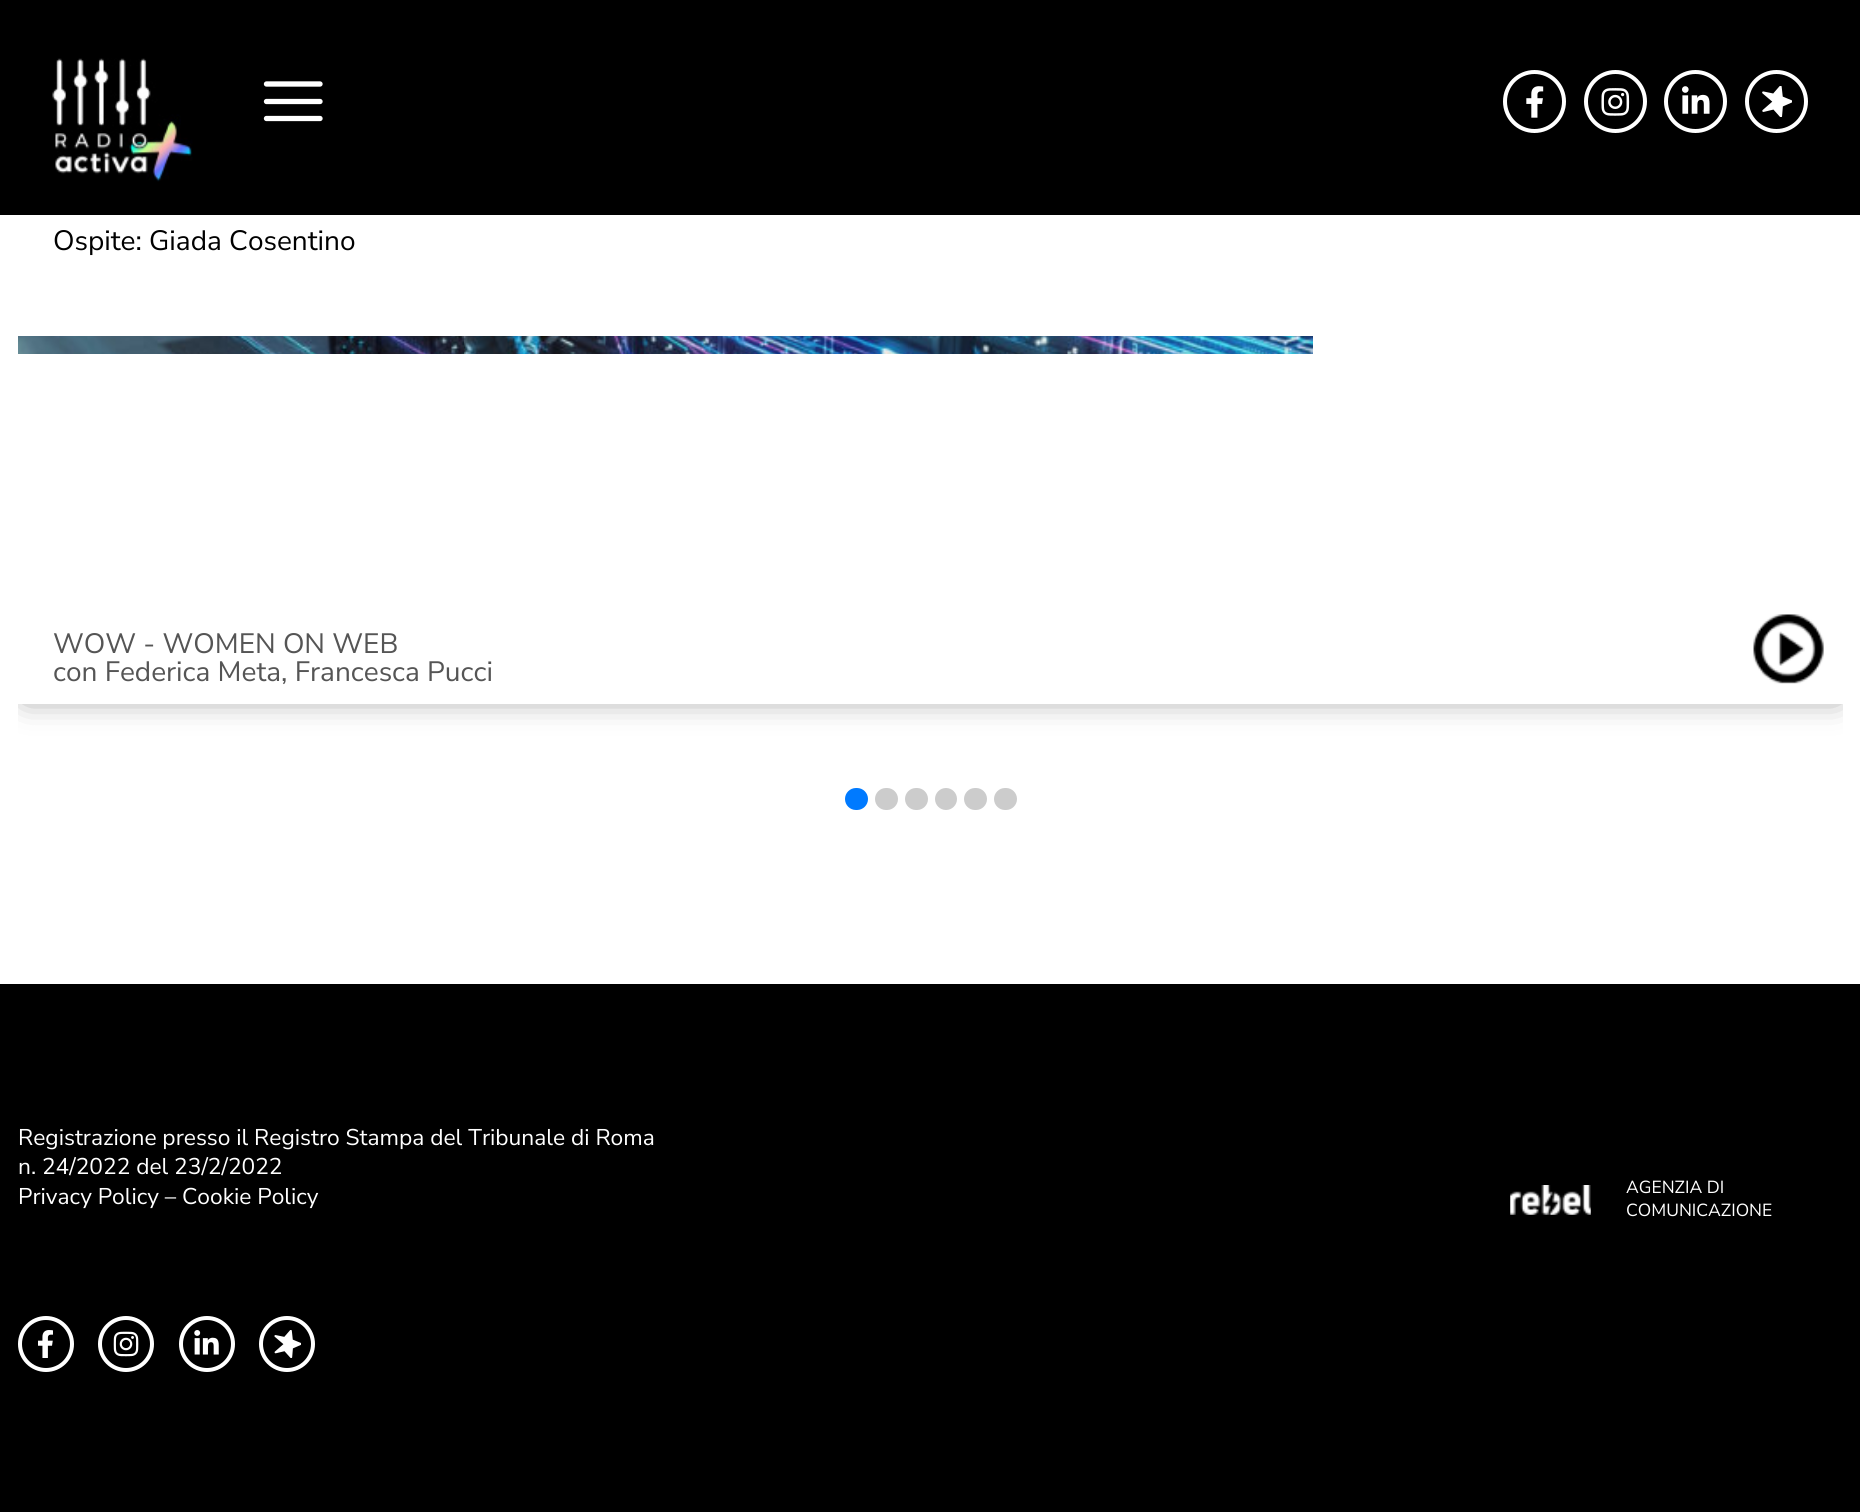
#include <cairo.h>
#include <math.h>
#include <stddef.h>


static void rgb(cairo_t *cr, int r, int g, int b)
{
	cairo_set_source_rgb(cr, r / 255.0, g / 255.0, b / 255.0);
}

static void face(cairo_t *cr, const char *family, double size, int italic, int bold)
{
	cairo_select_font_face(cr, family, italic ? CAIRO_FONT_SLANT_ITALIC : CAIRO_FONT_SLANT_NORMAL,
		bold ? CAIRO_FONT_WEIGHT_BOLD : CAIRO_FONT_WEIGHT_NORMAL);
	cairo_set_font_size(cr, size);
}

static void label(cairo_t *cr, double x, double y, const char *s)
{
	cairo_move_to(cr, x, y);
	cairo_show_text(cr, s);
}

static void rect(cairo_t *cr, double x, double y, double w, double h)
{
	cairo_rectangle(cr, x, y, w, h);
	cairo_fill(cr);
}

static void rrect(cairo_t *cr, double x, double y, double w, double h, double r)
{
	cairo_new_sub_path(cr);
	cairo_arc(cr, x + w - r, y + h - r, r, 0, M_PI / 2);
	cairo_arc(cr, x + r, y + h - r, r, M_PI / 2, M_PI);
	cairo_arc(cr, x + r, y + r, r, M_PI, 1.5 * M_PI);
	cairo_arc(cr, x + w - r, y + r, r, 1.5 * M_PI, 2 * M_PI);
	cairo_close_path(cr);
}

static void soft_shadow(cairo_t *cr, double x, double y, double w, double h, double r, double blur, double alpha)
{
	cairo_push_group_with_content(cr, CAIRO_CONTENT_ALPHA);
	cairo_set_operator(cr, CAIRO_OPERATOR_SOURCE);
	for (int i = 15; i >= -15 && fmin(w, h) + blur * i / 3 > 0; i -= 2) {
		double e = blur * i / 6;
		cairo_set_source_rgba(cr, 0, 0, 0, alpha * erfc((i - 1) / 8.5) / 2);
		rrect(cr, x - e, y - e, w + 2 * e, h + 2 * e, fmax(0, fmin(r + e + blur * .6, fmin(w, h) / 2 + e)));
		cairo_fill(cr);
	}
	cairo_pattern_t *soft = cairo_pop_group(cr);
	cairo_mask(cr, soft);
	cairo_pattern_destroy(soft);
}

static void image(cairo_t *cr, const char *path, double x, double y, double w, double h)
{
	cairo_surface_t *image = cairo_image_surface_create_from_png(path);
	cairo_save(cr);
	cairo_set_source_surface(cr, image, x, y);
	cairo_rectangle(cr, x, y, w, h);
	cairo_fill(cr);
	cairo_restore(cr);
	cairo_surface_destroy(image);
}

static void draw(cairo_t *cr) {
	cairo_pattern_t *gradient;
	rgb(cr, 255, 255, 255);
	cairo_paint(cr);
	cairo_save(cr);
	cairo_rectangle(cr, 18, 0, 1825, 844);
	cairo_clip(cr);
	rgb(cr, 51, 51, 51);
	soft_shadow(cr, 26, -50, 1812, 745, 0, 16.5, 0.65);
	cairo_restore(cr);
	rgb(cr, 0, 0, 0);
	rect(cr, 0, 0, 1860, 215);
	image(cr, "image0.png", 52, 58, 141, 124);
	cairo_new_path(cr);
	cairo_move_to(cr, 266.5, 84);
	cairo_line_to(cr, 320, 84);
	cairo_move_to(cr, 266.5, 101.5);
	cairo_line_to(cr, 320, 101.5);
	cairo_move_to(cr, 266.5, 118.5);
	cairo_line_to(cr, 320, 118.5);
	rgb(cr, 255, 255, 255);
	cairo_set_line_width(cr, 5.3);
	cairo_set_line_cap(cr, CAIRO_LINE_CAP_ROUND);
	cairo_set_line_join(cr, CAIRO_LINE_JOIN_ROUND);
	cairo_stroke(cr);
	cairo_arc(cr, 1534.5, 101.5, 29.5, 0, 2 * M_PI);
	cairo_set_line_width(cr, 4);
	cairo_set_line_cap(cr, CAIRO_LINE_CAP_BUTT);
	cairo_set_line_join(cr, CAIRO_LINE_JOIN_MITER);
	cairo_stroke(cr);
	image(cr, "image1.png", 1526, 86, 18, 32);
	cairo_arc(cr, 1615.5, 101.5, 29.5, 0, 2 * M_PI);
	cairo_stroke(cr);
	image(cr, "image2.png", 1601, 88, 29, 28);
	cairo_arc(cr, 1695.5, 101.5, 29.5, 0, 2 * M_PI);
	cairo_stroke(cr);
	image(cr, "image3.png", 1682, 86, 28, 28);
	cairo_arc(cr, 1776.5, 101.5, 29.5, 0, 2 * M_PI);
	cairo_stroke(cr);
	image(cr, "image4.png", 1762, 86, 30, 31);
	rect(cr, 1313, 336, 530, 18);
	gradient = cairo_pattern_create_linear(930, -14, 930, 336);
	cairo_pattern_add_color_stop_rgba(gradient, 0, 1, 1, 1, 0);
	cairo_pattern_add_color_stop_rgba(gradient, 0.36, 1, 1, 1, 1);
	cairo_set_source(cr, gradient);
	cairo_pattern_destroy(gradient);
	rect(cr, 18, 215, 1825, 121);
	face(cr, "Nunito Sans", 28, 0, 0);
	rgb(cr, 0, 0, 0);
	label(cr, 53, 250, "Ospite: Giada Cosentino");
	image(cr, "image5.png", 18, 336, 1295, 18);
	rgb(cr, 255, 255, 255);
	rect(cr, 18, 354, 1825, 350);
	rgb(cr, 85, 85, 85);
	label(cr, 53, 653, "WOW - WOMEN ON WEB");
	label(cr, 53, 681, "con Federica Meta, Francesca Pucci");
	image(cr, "image6.png", 1753, 614, 71, 70);
	rgb(cr, 0, 122, 255);
	rrect(cr, 845, 788, 23, 22, 11);
	cairo_fill(cr);
	rgb(cr, 204, 204, 204);
	rrect(cr, 875, 788, 23, 22, 11);
	cairo_fill(cr);
	rrect(cr, 905, 788, 23, 22, 11);
	cairo_fill(cr);
	cairo_arc(cr, 946, 799, 11, 0, 2 * M_PI);
	cairo_fill(cr);
	rrect(cr, 964, 788, 23, 22, 11);
	cairo_fill(cr);
	rrect(cr, 994, 788, 23, 22, 11);
	cairo_fill(cr);
	rgb(cr, 0, 0, 0);
	rect(cr, 0, 984, 1860, 528);
	face(cr, "Nunito Sans", 22.75, 0, 0);
	rgb(cr, 255, 255, 255);
	label(cr, 18, 1145, "Registrazione presso il Registro Stampa del Tribunale di Roma");
	label(cr, 18, 1174, "n. 24/2022 del 23/2/2022");
	label(cr, 18, 1204, "Privacy Policy – Cookie Policy");
	cairo_new_path(cr);
	cairo_arc(cr, 46, 1344, 26, 0, 2 * M_PI);
	cairo_stroke(cr);
	image(cr, "image7.png", 38, 1330, 15, 28);
	cairo_arc(cr, 126, 1344, 26, 0, 2 * M_PI);
	cairo_stroke(cr);
	image(cr, "image8.png", 113, 1331, 26, 26);
	cairo_arc(cr, 207, 1344, 26, 0, 2 * M_PI);
	cairo_stroke(cr);
	image(cr, "image9.png", 194, 1330, 25, 25);
	cairo_arc(cr, 287, 1344, 26, 0, 2 * M_PI);
	cairo_stroke(cr);
	image(cr, "image10.png", 274, 1330, 27, 28);
	image(cr, "image11.png", 1510, 1185, 81, 30);
	face(cr, "Nunito Sans", 17.5, 0, 0);
	label(cr, 1626, 1193, "AGENZIA DI");
	label(cr, 1626, 1216, "COMUNICAZIONE");
}

int main(void) {
	cairo_surface_t *surface = cairo_image_surface_create(CAIRO_FORMAT_RGB24, 1860, 1512);
	cairo_t *cr = cairo_create(surface);
	cairo_font_options_t *options = cairo_font_options_create();
	cairo_font_options_set_hint_metrics(options, CAIRO_HINT_METRICS_OFF);
	cairo_font_options_set_hint_style(options, CAIRO_HINT_STYLE_NONE);
	cairo_set_font_options(cr, options);
	cairo_set_miter_limit(cr, 4);
	draw(cr);
	cairo_surface_write_to_png(surface, "render.png");
	cairo_font_options_destroy(options);
	cairo_destroy(cr);
	cairo_surface_destroy(surface);
	return 0;
}
